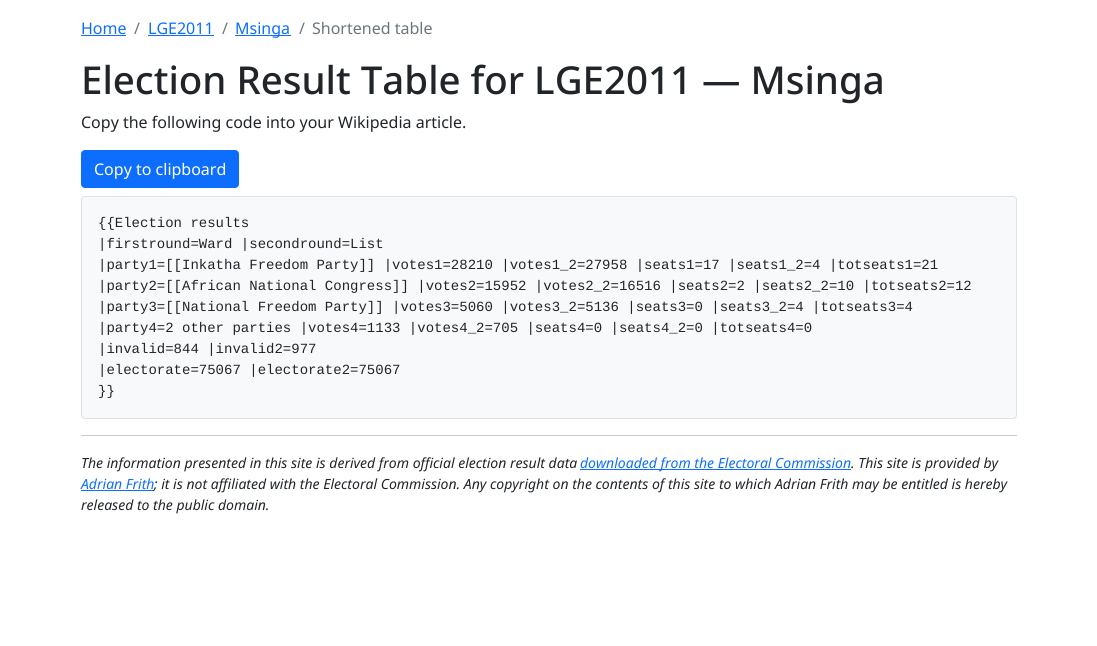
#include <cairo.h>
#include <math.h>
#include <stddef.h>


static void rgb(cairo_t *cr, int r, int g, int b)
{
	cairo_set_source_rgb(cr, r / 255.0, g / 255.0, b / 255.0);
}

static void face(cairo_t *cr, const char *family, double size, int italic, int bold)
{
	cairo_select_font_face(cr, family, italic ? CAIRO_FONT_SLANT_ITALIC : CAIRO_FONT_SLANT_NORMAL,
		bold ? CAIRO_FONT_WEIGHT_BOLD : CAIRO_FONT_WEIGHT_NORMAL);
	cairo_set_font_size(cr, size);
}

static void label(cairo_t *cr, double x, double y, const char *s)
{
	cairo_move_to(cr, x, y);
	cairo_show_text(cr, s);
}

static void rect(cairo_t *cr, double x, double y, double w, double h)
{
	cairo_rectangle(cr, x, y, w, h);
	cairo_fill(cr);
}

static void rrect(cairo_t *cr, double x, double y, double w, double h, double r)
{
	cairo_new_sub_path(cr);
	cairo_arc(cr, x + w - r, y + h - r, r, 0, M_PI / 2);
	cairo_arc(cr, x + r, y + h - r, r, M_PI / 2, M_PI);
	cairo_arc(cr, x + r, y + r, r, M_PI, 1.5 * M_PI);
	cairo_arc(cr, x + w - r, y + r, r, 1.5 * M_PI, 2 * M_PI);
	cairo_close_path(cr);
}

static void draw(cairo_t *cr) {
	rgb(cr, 255, 255, 255);
	cairo_paint(cr);
	face(cr, "Noto Sans", 16, 0, 0);
	rgb(cr, 13, 110, 253);
	label(cr, 81, 34, "Home");
	rect(cr, 81, 35, 45, 1);
	rgb(cr, 108, 117, 125);
	label(cr, 134, 34, "/");
	rgb(cr, 13, 110, 253);
	label(cr, 148, 34, "LGE2011");
	rect(cr, 148, 35, 66, 1);
	rgb(cr, 108, 117, 125);
	label(cr, 222, 34, "/");
	rgb(cr, 13, 110, 253);
	rect(cr, 235, 35, 56, 1);
	label(cr, 235, 34, "Msinga");
	rgb(cr, 108, 117, 125);
	label(cr, 299, 34, "/");
	label(cr, 312, 34, "Shortened table");
	face(cr, "Noto Sans Medium", 38.45, 0, 0);
	rgb(cr, 33, 37, 41);
	label(cr, 81, 94, "Election Result Table for LGE2011 — Msinga");
	face(cr, "Noto Sans", 16, 0, 0);
	label(cr, 81, 128, "Copy the following code into your Wikipedia article.");
	rgb(cr, 13, 110, 253);
	rrect(cr, 81.5, 150.5, 157, 37, 3.5);
	cairo_fill_preserve(cr);
	cairo_set_line_width(cr, 1);
	cairo_stroke(cr);
	rgb(cr, 255, 255, 255);
	label(cr, 94, 175, "Copy to clipboard");
	rgb(cr, 248, 249, 250);
	rrect(cr, 81.5, 196.5, 935, 222, 3.5);
	cairo_fill_preserve(cr);
	rgb(cr, 222, 226, 230);
	cairo_stroke(cr);
	face(cr, "Liberation Mono", 14, 0, 0);
	rgb(cr, 33, 37, 41);
	label(cr, 98, 227, "{{Election results");
	label(cr, 98, 248, "|firstround=Ward |secondround=List");
	label(cr, 98, 269, "|party1=[[Inkatha Freedom Party]] |votes1=28210 |votes1_2=27958 |seats1=17 |seats1_2=4 |totseats1=21");
	label(cr, 98, 290, "|party2=[[African National Congress]] |votes2=15952 |votes2_2=16516 |seats2=2 |seats2_2=10 |totseats2=12");
	label(cr, 98, 311, "|party3=[[National Freedom Party]] |votes3=5060 |votes3_2=5136 |seats3=0 |seats3_2=4 |totseats3=4");
	label(cr, 98, 332, "|party4=2 other parties |votes4=1133 |votes4_2=705 |seats4=0 |seats4_2=0 |totseats4=0");
	label(cr, 98, 353, "|invalid=844 |invalid2=977");
	label(cr, 98, 374, "|electorate=75067 |electorate2=75067");
	label(cr, 98, 395, "}}");
	rgb(cr, 200, 201, 202);
	rect(cr, 81, 435, 936, 1);
	face(cr, "Noto Sans", 14, 1, 0);
	rgb(cr, 33, 37, 41);
	label(cr, 81, 468, "The information presented in this site is derived from official election result data");
	rgb(cr, 13, 110, 253);
	rect(cr, 580, 469, 271, 1);
	label(cr, 580, 468, "downloaded from the Electoral Commission");
	rgb(cr, 33, 37, 41);
	label(cr, 851, 468, ". This site is provided by");
	rgb(cr, 13, 110, 253);
	label(cr, 81, 489, "Adrian Frith");
	rect(cr, 81, 490, 73, 1);
	rgb(cr, 33, 37, 41);
	label(cr, 154, 489, "; it is not affiliated with the Electoral Commission. Any copyright on the contents of this site to which Adrian Frith may be entitled is hereby");
	label(cr, 81, 510, "released to the public domain.");
}

int main(void) {
	cairo_surface_t *surface = cairo_image_surface_create(CAIRO_FORMAT_RGB24, 1097, 646);
	cairo_t *cr = cairo_create(surface);
	cairo_font_options_t *options = cairo_font_options_create();
	cairo_font_options_set_hint_metrics(options, CAIRO_HINT_METRICS_OFF);
	cairo_font_options_set_hint_style(options, CAIRO_HINT_STYLE_NONE);
	cairo_set_font_options(cr, options);
	cairo_set_miter_limit(cr, 4);
	draw(cr);
	cairo_surface_write_to_png(surface, "render.png");
	cairo_font_options_destroy(options);
	cairo_destroy(cr);
	cairo_surface_destroy(surface);
	return 0;
}
